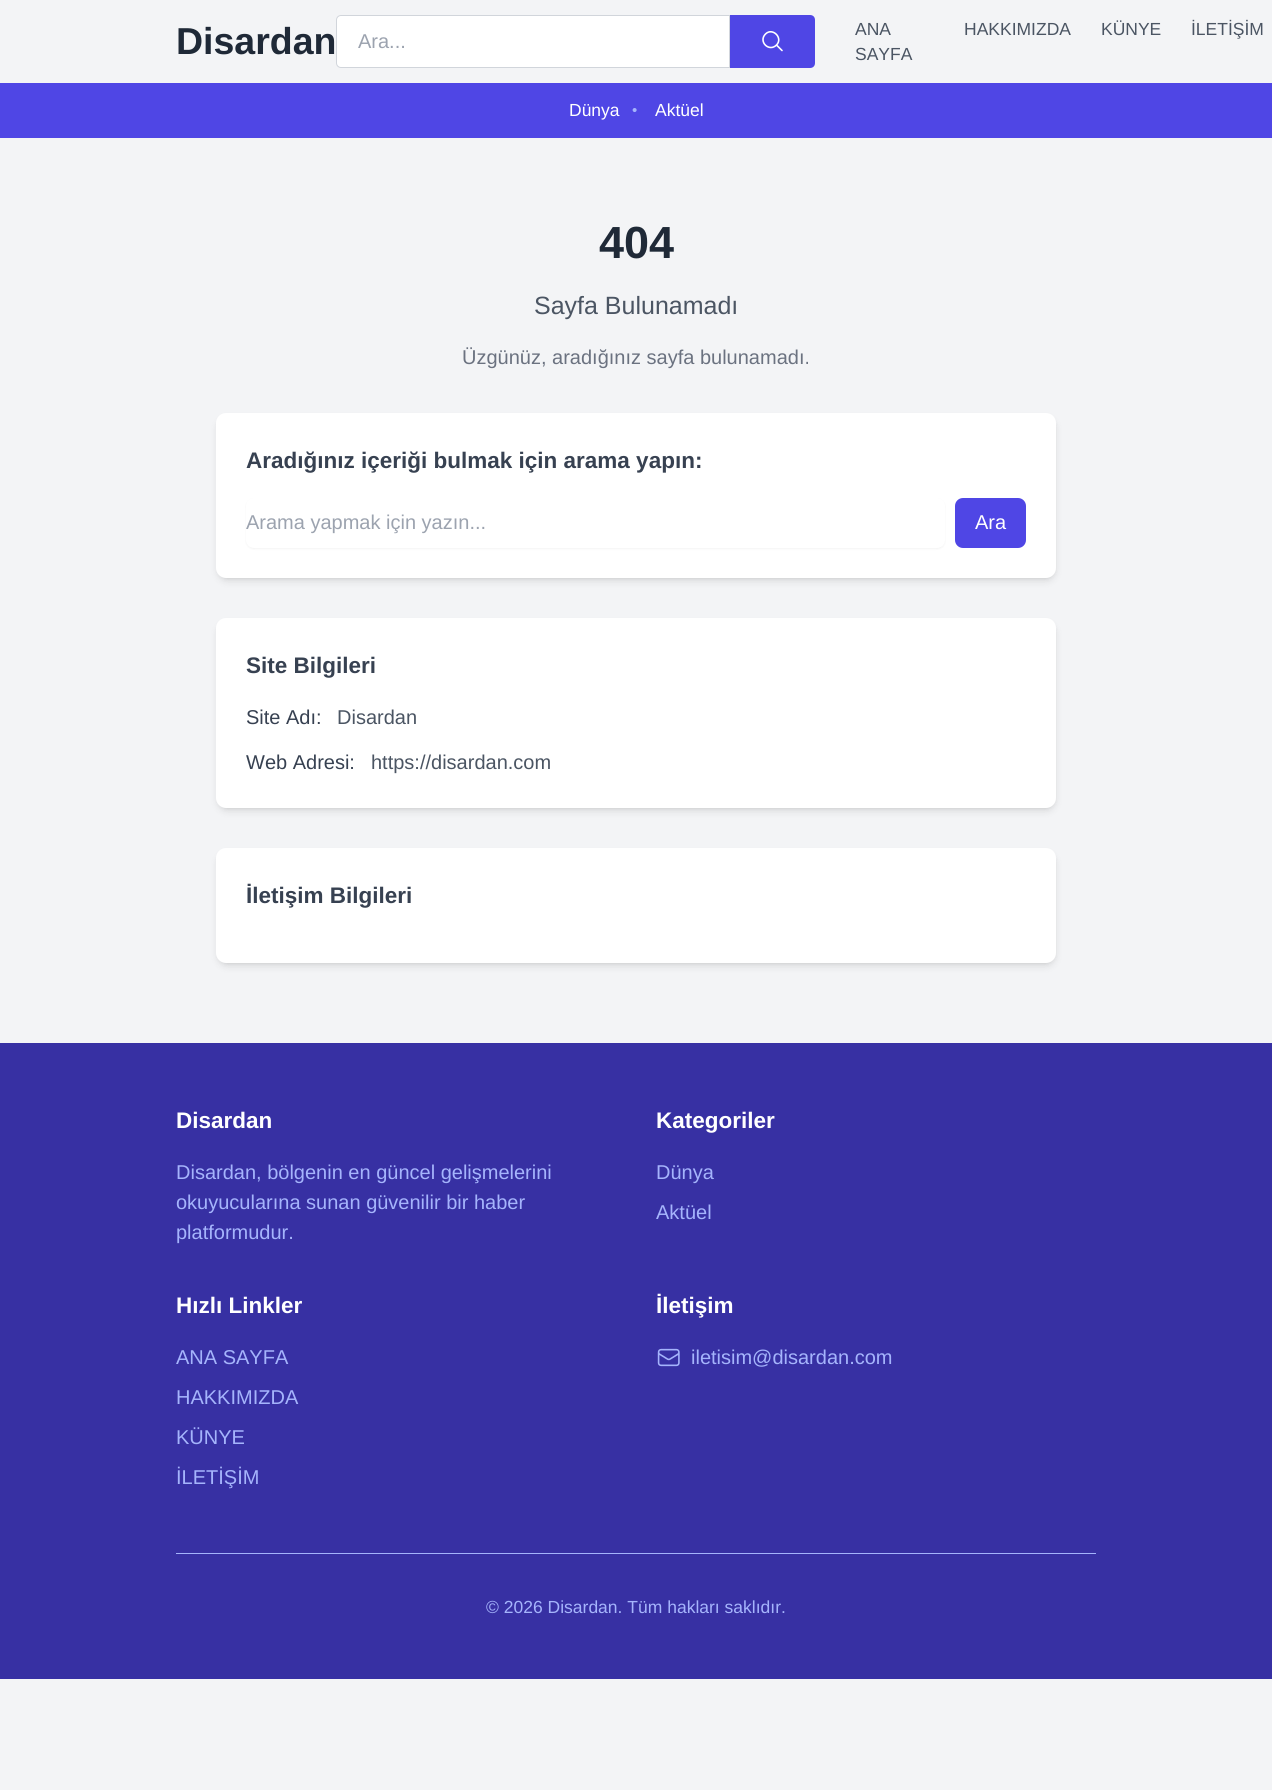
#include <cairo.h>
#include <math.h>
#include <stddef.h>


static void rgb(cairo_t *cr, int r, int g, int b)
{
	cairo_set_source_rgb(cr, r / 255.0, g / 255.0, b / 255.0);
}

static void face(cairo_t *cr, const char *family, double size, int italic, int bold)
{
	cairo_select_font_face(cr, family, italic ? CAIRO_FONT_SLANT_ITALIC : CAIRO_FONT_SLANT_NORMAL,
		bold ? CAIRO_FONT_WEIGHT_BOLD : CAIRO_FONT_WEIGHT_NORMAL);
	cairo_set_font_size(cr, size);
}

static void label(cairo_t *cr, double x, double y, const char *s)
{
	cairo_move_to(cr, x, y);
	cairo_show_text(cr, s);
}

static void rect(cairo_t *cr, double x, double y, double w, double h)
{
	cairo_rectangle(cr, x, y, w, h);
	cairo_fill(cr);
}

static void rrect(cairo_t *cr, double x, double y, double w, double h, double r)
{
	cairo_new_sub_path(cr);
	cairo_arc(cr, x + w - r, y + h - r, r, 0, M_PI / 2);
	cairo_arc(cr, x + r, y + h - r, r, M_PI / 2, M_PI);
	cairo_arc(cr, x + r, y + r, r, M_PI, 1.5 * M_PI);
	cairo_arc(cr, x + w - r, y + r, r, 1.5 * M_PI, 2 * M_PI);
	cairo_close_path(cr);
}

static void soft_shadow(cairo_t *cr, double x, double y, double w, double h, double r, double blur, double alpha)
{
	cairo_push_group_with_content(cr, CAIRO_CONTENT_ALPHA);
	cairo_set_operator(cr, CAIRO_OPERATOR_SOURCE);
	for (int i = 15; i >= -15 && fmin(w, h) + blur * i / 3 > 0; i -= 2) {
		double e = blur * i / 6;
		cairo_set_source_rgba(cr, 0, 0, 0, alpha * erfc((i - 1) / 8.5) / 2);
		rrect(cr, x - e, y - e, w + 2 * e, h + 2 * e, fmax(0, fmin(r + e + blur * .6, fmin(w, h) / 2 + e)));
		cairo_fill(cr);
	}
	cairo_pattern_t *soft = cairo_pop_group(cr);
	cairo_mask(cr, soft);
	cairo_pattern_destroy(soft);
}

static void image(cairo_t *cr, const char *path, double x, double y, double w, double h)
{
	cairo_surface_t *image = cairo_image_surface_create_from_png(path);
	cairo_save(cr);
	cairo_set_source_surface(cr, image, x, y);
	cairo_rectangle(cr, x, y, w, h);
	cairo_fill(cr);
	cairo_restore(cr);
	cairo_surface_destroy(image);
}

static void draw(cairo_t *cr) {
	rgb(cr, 243, 244, 246);
	cairo_paint(cr);
	face(cr, "Liberation Sans", 37.5, 0, 1);
	rgb(cr, 31, 41, 55);
	label(cr, 176, 54, "Disardan");
	rgb(cr, 255, 255, 255);
	cairo_new_path(cr);
	cairo_move_to(cr, 341, 15.5);
	cairo_line_to(cr, 729.5, 15.5);
	cairo_line_to(cr, 729.5, 67.5);
	cairo_line_to(cr, 341, 67.5);
	cairo_curve_to(cr, 338.5, 67.5, 336.5, 65.5, 336.5, 63);
	cairo_line_to(cr, 336.5, 20);
	cairo_curve_to(cr, 336.5, 17.5, 338.5, 15.5, 341, 15.5);
	cairo_close_path(cr);
	cairo_fill_preserve(cr);
	rgb(cr, 209, 213, 219);
	cairo_set_line_width(cr, 1);
	cairo_stroke(cr);
	face(cr, "Liberation Sans", 20, 0, 0);
	rgb(cr, 156, 163, 175);
	label(cr, 358, 48, "Ara...");
	rgb(cr, 79, 70, 229);
	cairo_new_path(cr);
	cairo_move_to(cr, 730, 15);
	cairo_line_to(cr, 810, 15);
	cairo_curve_to(cr, 813, 15, 815, 17, 815, 20);
	cairo_line_to(cr, 815, 63);
	cairo_curve_to(cr, 815, 66, 813, 68, 810, 68);
	cairo_line_to(cr, 730, 68);
	cairo_close_path(cr);
	cairo_fill(cr);
	cairo_new_path(cr);
	cairo_move_to(cr, 782, 50.5);
	cairo_line_to(cr, 776.5, 45);
	cairo_move_to(cr, 776.5, 45);
	cairo_curve_to(cr, 783.5, 38, 772.5, 27, 765.5, 34);
	cairo_curve_to(cr, 758, 41.5, 769, 52.5, 776.5, 45);
	cairo_close_path(cr);
	rgb(cr, 255, 255, 255);
	cairo_set_line_width(cr, 1.6);
	cairo_set_line_cap(cr, CAIRO_LINE_CAP_ROUND);
	cairo_set_line_join(cr, CAIRO_LINE_JOIN_ROUND);
	cairo_stroke(cr);
	face(cr, "Liberation Sans", 17.5, 0, 0);
	rgb(cr, 75, 85, 99);
	label(cr, 855, 35, "ANA");
	label(cr, 855, 60, "SAYFA");
	label(cr, 964, 35, "HAKKIMIZDA");
	label(cr, 1101, 35, "KÜNYE");
	label(cr, 1191, 35, "İLETİŞİM");
	rgb(cr, 79, 70, 229);
	rect(cr, 0, 83, 1272, 55);
	rgb(cr, 255, 255, 255);
	label(cr, 569, 116, "Dünya");
	face(cr, "Liberation Sans", 15, 0, 0);
	rgb(cr, 165, 180, 252);
	label(cr, 632, 115, "•");
	face(cr, "Liberation Sans", 17.5, 0, 0);
	rgb(cr, 255, 255, 255);
	label(cr, 655, 116, "Aktüel");
	face(cr, "Liberation Sans", 45, 0, 1);
	rgb(cr, 31, 41, 55);
	label(cr, 599, 258, "404");
	face(cr, "Liberation Sans", 25, 0, 0);
	rgb(cr, 75, 85, 99);
	label(cr, 534, 314, "Sayfa Bulunamadı");
	face(cr, "Liberation Sans", 20, 0, 0);
	rgb(cr, 107, 114, 128);
	label(cr, 462, 364, "Üzgünüz, aradığınız sayfa bulunamadı.");
	rgb(cr, 0, 0, 0);
	soft_shadow(cr, 219, 418, 835, 160, 8, 2.5, 0.1);
	soft_shadow(cr, 218, 419, 837, 162, 9, 4, 0.1);
	rgb(cr, 255, 255, 255);
	rrect(cr, 216, 413, 840, 165, 10);
	cairo_fill(cr);
	face(cr, "Liberation Sans", 22.5, 0, 1);
	rgb(cr, 55, 65, 81);
	label(cr, 246, 468, "Aradığınız içeriği bulmak için arama yapın:");
	rgb(cr, 0, 0, 0);
	soft_shadow(cr, 246, 499, 699, 50, 8, 1, 0.05);
	rgb(cr, 255, 255, 255);
	rrect(cr, 246, 498, 699, 50, 8);
	cairo_fill(cr);
	face(cr, "Liberation Sans", 20, 0, 0);
	rgb(cr, 156, 163, 175);
	label(cr, 246, 529, "Arama yapmak için yazın...");
	rgb(cr, 79, 70, 229);
	rrect(cr, 955, 498, 71, 50, 8);
	cairo_fill(cr);
	rgb(cr, 255, 255, 255);
	label(cr, 975, 529, "Ara");
	rgb(cr, 0, 0, 0);
	soft_shadow(cr, 219, 623, 835, 185, 8, 2.5, 0.1);
	soft_shadow(cr, 218, 624, 837, 187, 9, 4, 0.1);
	rgb(cr, 255, 255, 255);
	rrect(cr, 216, 618, 840, 190, 10);
	cairo_fill(cr);
	face(cr, "Liberation Sans", 22.5, 0, 1);
	rgb(cr, 55, 65, 81);
	label(cr, 246, 673, "Site Bilgileri");
	face(cr, "Liberation Sans", 20, 0, 0);
	label(cr, 246, 724, "Site Adı:");
	rgb(cr, 75, 85, 99);
	label(cr, 337, 724, "Disardan");
	rgb(cr, 55, 65, 81);
	label(cr, 246, 769, "Web Adresi:");
	rgb(cr, 75, 85, 99);
	label(cr, 371, 769, "https://disardan.com");
	rgb(cr, 0, 0, 0);
	soft_shadow(cr, 219, 853, 835, 110, 8, 2.5, 0.1);
	soft_shadow(cr, 218, 854, 837, 112, 9, 4, 0.1);
	rgb(cr, 255, 255, 255);
	rrect(cr, 216, 848, 840, 115, 10);
	cairo_fill(cr);
	face(cr, "Liberation Sans", 22.5, 0, 1);
	rgb(cr, 55, 65, 81);
	label(cr, 246, 903, "İletişim Bilgileri");
	rgb(cr, 55, 48, 163);
	rect(cr, 0, 1043, 1272, 636);
	rgb(cr, 255, 255, 255);
	label(cr, 176, 1128, "Disardan");
	face(cr, "Liberation Sans", 20, 0, 0);
	rgb(cr, 165, 180, 252);
	label(cr, 176, 1179, "Disardan, bölgenin en güncel gelişmelerini");
	label(cr, 176, 1209, "okuyucularına sunan güvenilir bir haber");
	label(cr, 176, 1239, "platformudur.");
	face(cr, "Liberation Sans", 22.5, 0, 1);
	rgb(cr, 255, 255, 255);
	label(cr, 656, 1128, "Kategoriler");
	face(cr, "Liberation Sans", 20, 0, 0);
	rgb(cr, 165, 180, 252);
	label(cr, 656, 1179, "Dünya");
	label(cr, 656, 1219, "Aktüel");
	face(cr, "Liberation Sans", 22.5, 0, 1);
	rgb(cr, 255, 255, 255);
	label(cr, 176, 1313, "Hızlı Linkler");
	face(cr, "Liberation Sans", 20, 0, 0);
	rgb(cr, 165, 180, 252);
	label(cr, 176, 1364, "ANA SAYFA");
	label(cr, 176, 1404, "HAKKIMIZDA");
	label(cr, 176, 1444, "KÜNYE");
	label(cr, 176, 1484, "İLETİŞİM");
	face(cr, "Liberation Sans", 22.5, 0, 1);
	rgb(cr, 255, 255, 255);
	label(cr, 656, 1313, "İletişim");
	image(cr, "image0.png", 657, 1348, 23, 19);
	face(cr, "Liberation Sans", 20, 0, 0);
	rgb(cr, 165, 180, 252);
	label(cr, 691, 1364, "iletisim@disardan.com");
	rect(cr, 176, 1553, 920, 1);
	face(cr, "Liberation Sans", 17.5, 0, 0);
	label(cr, 486, 1613, "© 2026 Disardan. Tüm hakları saklıdır.");
}

int main(void) {
	cairo_surface_t *surface = cairo_image_surface_create(CAIRO_FORMAT_RGB24, 1272, 1790);
	cairo_t *cr = cairo_create(surface);
	cairo_font_options_t *options = cairo_font_options_create();
	cairo_font_options_set_hint_metrics(options, CAIRO_HINT_METRICS_OFF);
	cairo_font_options_set_hint_style(options, CAIRO_HINT_STYLE_NONE);
	cairo_set_font_options(cr, options);
	cairo_set_miter_limit(cr, 4);
	draw(cr);
	cairo_surface_write_to_png(surface, "render.png");
	cairo_font_options_destroy(options);
	cairo_destroy(cr);
	cairo_surface_destroy(surface);
	return 0;
}
